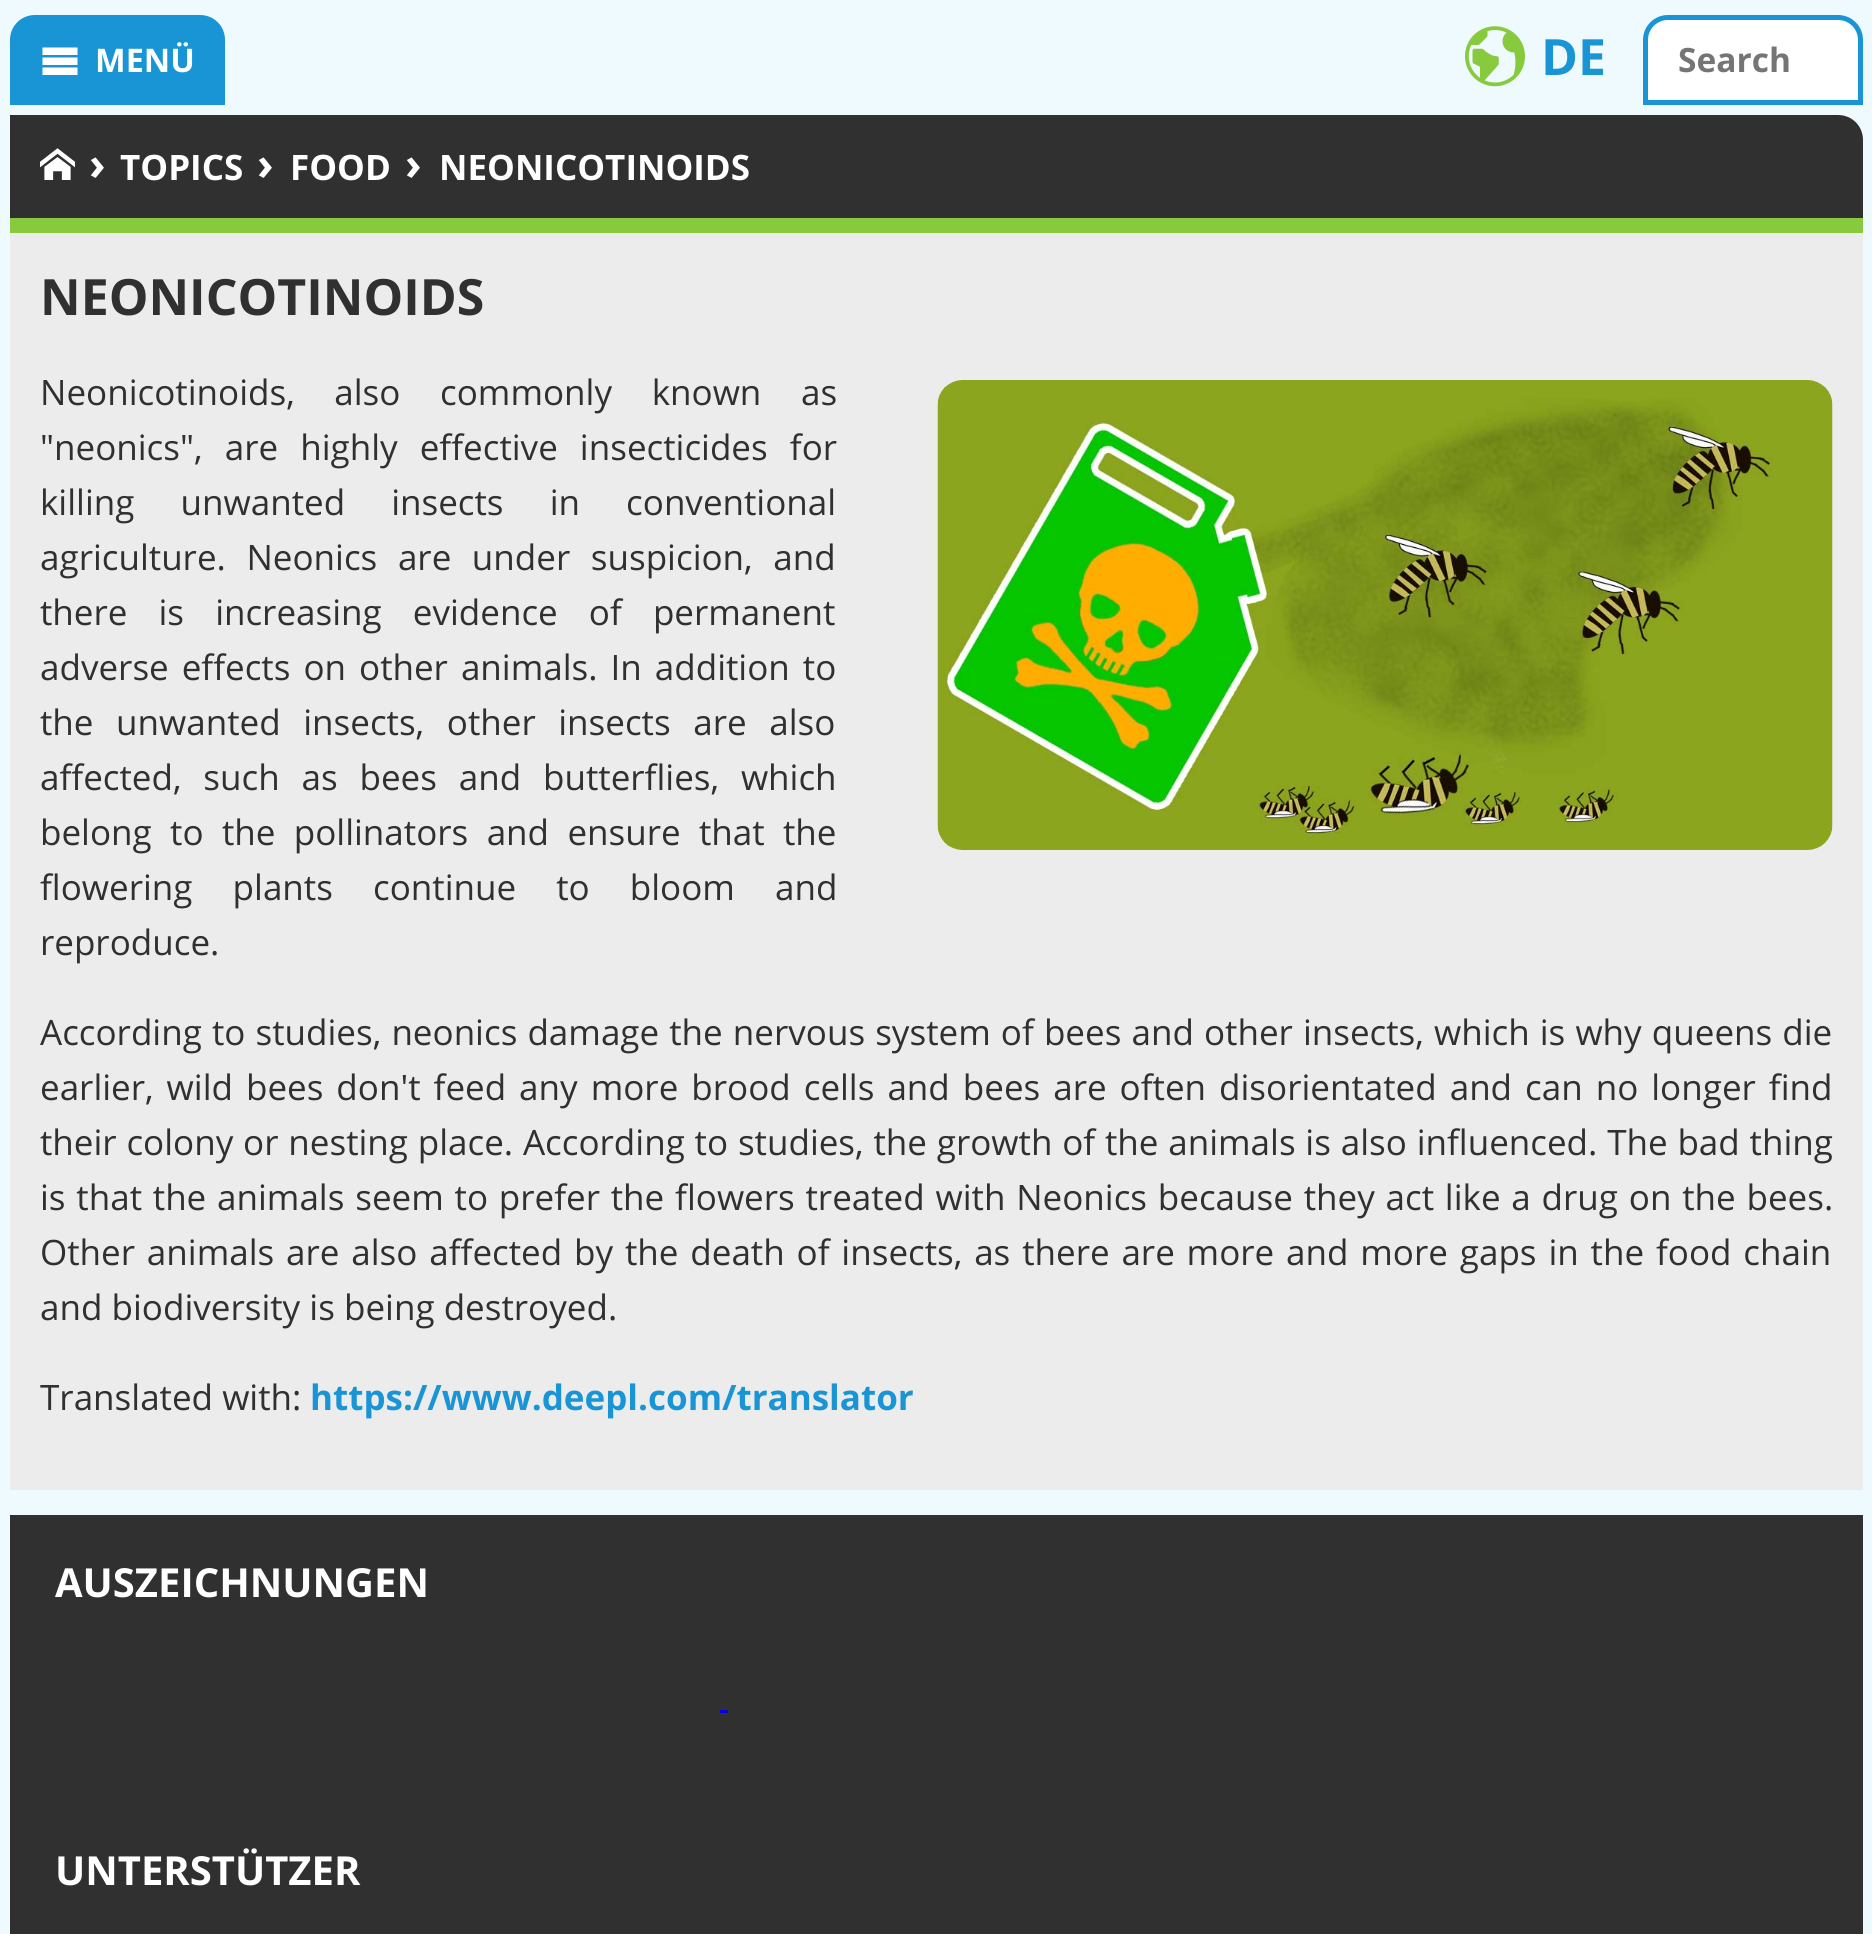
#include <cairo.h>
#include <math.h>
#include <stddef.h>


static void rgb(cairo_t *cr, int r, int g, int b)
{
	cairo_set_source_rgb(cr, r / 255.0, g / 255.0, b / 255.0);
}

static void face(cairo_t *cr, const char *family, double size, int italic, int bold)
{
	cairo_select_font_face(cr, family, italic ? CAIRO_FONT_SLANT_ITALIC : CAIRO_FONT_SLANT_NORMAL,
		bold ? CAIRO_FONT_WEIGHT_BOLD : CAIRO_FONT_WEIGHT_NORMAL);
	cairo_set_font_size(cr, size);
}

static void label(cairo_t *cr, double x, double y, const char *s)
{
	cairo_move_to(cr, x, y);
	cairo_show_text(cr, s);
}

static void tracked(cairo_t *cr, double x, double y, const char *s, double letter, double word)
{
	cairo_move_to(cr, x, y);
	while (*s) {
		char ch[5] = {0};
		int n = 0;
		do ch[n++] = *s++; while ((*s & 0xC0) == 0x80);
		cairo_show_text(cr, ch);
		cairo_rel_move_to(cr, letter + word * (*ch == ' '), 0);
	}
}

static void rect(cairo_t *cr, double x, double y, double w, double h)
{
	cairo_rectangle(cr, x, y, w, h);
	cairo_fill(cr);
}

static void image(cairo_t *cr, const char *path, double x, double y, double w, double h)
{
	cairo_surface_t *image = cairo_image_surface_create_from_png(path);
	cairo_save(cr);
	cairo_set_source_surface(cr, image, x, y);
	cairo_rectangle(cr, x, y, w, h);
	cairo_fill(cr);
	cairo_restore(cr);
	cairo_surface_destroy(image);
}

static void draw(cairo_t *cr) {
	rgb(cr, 239, 250, 254);
	cairo_paint(cr);
	rgb(cr, 25, 149, 213);
	cairo_new_path(cr);
	cairo_move_to(cr, 35, 15);
	cairo_line_to(cr, 200, 15);
	cairo_curve_to(cr, 214, 15, 225, 26, 225, 40);
	cairo_line_to(cr, 225, 105);
	cairo_line_to(cr, 10, 105);
	cairo_line_to(cr, 10, 40);
	cairo_curve_to(cr, 10, 26, 21, 15, 35, 15);
	cairo_close_path(cr);
	cairo_fill(cr);
	rgb(cr, 255, 255, 255);
	cairo_new_path(cr);
	cairo_move_to(cr, 42.5, 47.5);
	cairo_line_to(cr, 77.5, 47.5);
	cairo_line_to(cr, 77.5, 55);
	cairo_line_to(cr, 42.5, 55);
	cairo_close_path(cr);
	cairo_move_to(cr, 42.5, 57.5);
	cairo_line_to(cr, 77.5, 57.5);
	cairo_line_to(cr, 77.5, 65);
	cairo_line_to(cr, 42.5, 65);
	cairo_close_path(cr);
	cairo_move_to(cr, 42.5, 67.5);
	cairo_line_to(cr, 77.5, 67.5);
	cairo_line_to(cr, 77.5, 75);
	cairo_line_to(cr, 42.5, 75);
	cairo_close_path(cr);
	cairo_fill(cr);
	face(cr, "Open Sans", 32.5, 0, 1);
	label(cr, 95, 72, "MENÜ");
	image(cr, "image0.png", 1465, 26, 60, 61);
	face(cr, "Open Sans", 50, 0, 1);
	rgb(cr, 25, 149, 213);
	label(cr, 1541, 75, "DE");
	rgb(cr, 255, 255, 255);
	cairo_new_path(cr);
	cairo_move_to(cr, 1668, 17.5);
	cairo_line_to(cr, 1838, 17.5);
	cairo_curve_to(cr, 1850.5, 17.5, 1860.5, 27.5, 1860.5, 40);
	cairo_line_to(cr, 1860.5, 102.5);
	cairo_line_to(cr, 1645.5, 102.5);
	cairo_line_to(cr, 1645.5, 40);
	cairo_curve_to(cr, 1645.5, 27.5, 1655.5, 17.5, 1668, 17.5);
	cairo_close_path(cr);
	cairo_fill_preserve(cr);
	rgb(cr, 25, 149, 213);
	cairo_set_line_width(cr, 5);
	cairo_stroke(cr);
	face(cr, "Open Sans", 33.5, 0, 1);
	rgb(cr, 117, 117, 117);
	label(cr, 1678, 72, "Search");
	rgb(cr, 48, 48, 48);
	cairo_new_path(cr);
	cairo_move_to(cr, 10, 115);
	cairo_line_to(cr, 1838, 115);
	cairo_curve_to(cr, 1852, 115, 1863, 126, 1863, 140);
	cairo_line_to(cr, 1863, 233);
	cairo_line_to(cr, 10, 233);
	cairo_close_path(cr);
	cairo_fill(cr);
	rgb(cr, 135, 202, 61);
	rect(cr, 10, 218, 1853, 15);
	image(cr, "image1.png", 40, 148, 35, 32);
	face(cr, "Open Sans", 45, 0, 1);
	rgb(cr, 255, 255, 255);
	label(cr, 89, 180, "›");
	face(cr, "Open Sans", 35, 0, 1);
	label(cr, 120, 180, "TOPICS");
	face(cr, "Open Sans", 45, 0, 1);
	label(cr, 257, 180, "›");
	face(cr, "Open Sans", 35, 0, 1);
	label(cr, 290, 180, "FOOD");
	face(cr, "Open Sans", 45, 0, 1);
	label(cr, 405, 180, "›");
	face(cr, "Open Sans", 35, 0, 1);
	label(cr, 439, 180, "NEONICOTINOIDS");
	rgb(cr, 236, 236, 236);
	rect(cr, 10, 233, 1853, 1257);
	face(cr, "Open Sans", 50, 0, 1);
	rgb(cr, 48, 48, 48);
	label(cr, 40, 315, "NEONICOTINOIDS");
	face(cr, "Open Sans", 35, 0, 0);
	tracked(cr, 40, 405, "Neonicotinoids, also commonly known as", 0, 30.5);
	tracked(cr, 40, 460, "\"neonics\", are highly effective insecticides for", 0, 13);
	tracked(cr, 40, 515, "killing unwanted insects in conventional", 0, 37);
	tracked(cr, 40, 570, "agriculture. Neonics are under suspicion, and", 0, 11.5);
	tracked(cr, 40, 625, "there is increasing evidence of permanent", 0, 22);
	tracked(cr, 40, 680, "adverse effects on other animals. In addition to", 0, 3.9);
	tracked(cr, 40, 735, "the unwanted insects, other insects are also", 0, 13.5);
	tracked(cr, 40, 790, "affected, such as bees and butterflies, which", 0, 12.75);
	tracked(cr, 40, 845, "belong to the pollinators and ensure that the", 0, 9.25);
	tracked(cr, 40, 900, "flowering plants continue to bloom and", 0, 31);
	label(cr, 40, 955, "reproduce.");
	image(cr, "image2.png", 937, 380, 896, 470);
	tracked(cr, 40, 1045, "According to studies, neonics damage the nervous system of bees and other insects, which is why queens die", 0, 1);
	tracked(cr, 40, 1100, "earlier, wild bees don't feed any more brood cells and bees are often disorientated and can no longer find", 0, 3.9);
	tracked(cr, 40, 1155, "their colony or nesting place. According to studies, the growth of the animals is also influenced. The bad thing", 0, 0.7);
	tracked(cr, 40, 1210, "is that the animals seem to prefer the flowers treated with Neonics because they act like a drug on the bees.", 0, 1.7);
	tracked(cr, 40, 1265, "Other animals are also affected by the death of insects, as there are more and more gaps in the food chain", 0, 2.75);
	label(cr, 40, 1320, "and biodiversity is being destroyed.");
	label(cr, 40, 1410, "Translated with:");
	face(cr, "Open Sans", 35, 0, 1);
	rgb(cr, 25, 149, 213);
	label(cr, 310, 1410, "https://www.deepl.com/translator");
	rgb(cr, 48, 48, 48);
	rect(cr, 10, 1515, 1853, 419);
	face(cr, "Open Sans", 40, 0, 1);
	rgb(cr, 255, 255, 255);
	label(cr, 55, 1597, "AUSZEICHNUNGEN");
	rgb(cr, 0, 0, 238);
	rect(cr, 720, 1710, 8, 3);
	rgb(cr, 255, 255, 255);
	label(cr, 55, 1885, "UNTERSTÜTZER");
}

int main(void) {
	cairo_surface_t *surface = cairo_image_surface_create(CAIRO_FORMAT_RGB24, 1872, 1934);
	cairo_t *cr = cairo_create(surface);
	cairo_font_options_t *options = cairo_font_options_create();
	cairo_font_options_set_hint_metrics(options, CAIRO_HINT_METRICS_OFF);
	cairo_font_options_set_hint_style(options, CAIRO_HINT_STYLE_NONE);
	cairo_set_font_options(cr, options);
	cairo_set_miter_limit(cr, 4);
	draw(cr);
	cairo_surface_write_to_png(surface, "render.png");
	cairo_font_options_destroy(options);
	cairo_destroy(cr);
	cairo_surface_destroy(surface);
	return 0;
}
